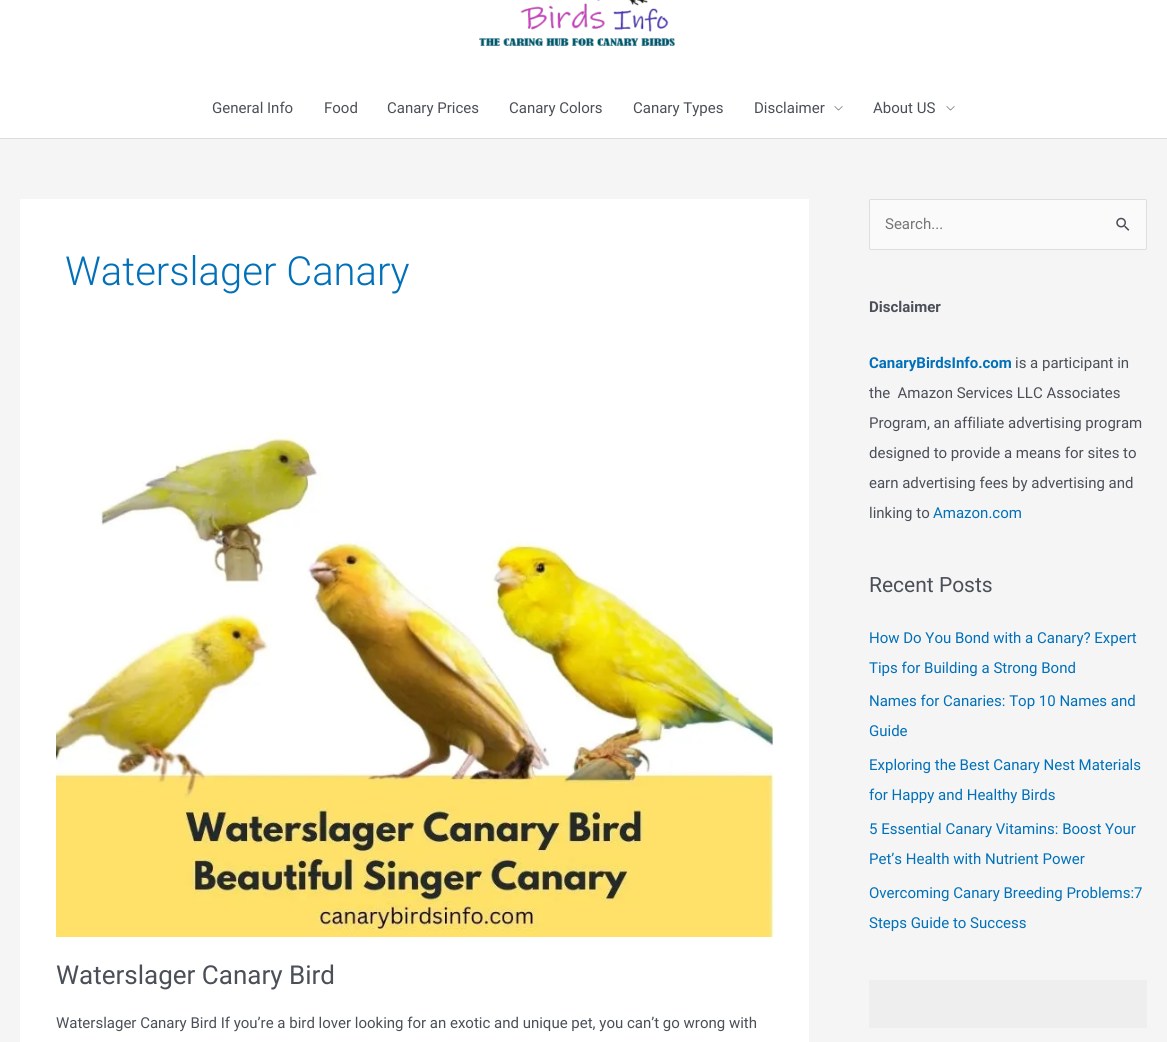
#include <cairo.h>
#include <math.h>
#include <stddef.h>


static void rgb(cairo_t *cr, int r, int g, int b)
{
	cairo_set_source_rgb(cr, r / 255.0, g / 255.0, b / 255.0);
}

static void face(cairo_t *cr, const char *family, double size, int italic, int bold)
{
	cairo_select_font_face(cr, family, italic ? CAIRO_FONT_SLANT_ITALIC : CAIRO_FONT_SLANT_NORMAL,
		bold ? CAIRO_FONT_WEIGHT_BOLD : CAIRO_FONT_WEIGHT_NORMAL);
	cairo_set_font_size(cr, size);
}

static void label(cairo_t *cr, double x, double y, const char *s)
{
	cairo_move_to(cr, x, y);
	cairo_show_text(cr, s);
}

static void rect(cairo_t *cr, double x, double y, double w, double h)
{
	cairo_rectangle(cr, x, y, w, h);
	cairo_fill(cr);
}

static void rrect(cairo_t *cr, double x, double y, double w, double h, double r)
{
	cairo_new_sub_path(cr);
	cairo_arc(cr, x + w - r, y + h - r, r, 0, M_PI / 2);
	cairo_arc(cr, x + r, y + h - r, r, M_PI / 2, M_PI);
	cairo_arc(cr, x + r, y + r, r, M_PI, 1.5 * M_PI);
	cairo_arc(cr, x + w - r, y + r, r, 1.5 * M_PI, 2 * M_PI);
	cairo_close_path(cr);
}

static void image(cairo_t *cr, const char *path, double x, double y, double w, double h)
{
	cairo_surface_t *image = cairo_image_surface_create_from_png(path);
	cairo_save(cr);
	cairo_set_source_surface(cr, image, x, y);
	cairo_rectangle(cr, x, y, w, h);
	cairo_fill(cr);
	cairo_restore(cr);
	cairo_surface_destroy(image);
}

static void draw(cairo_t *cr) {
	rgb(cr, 245, 245, 245);
	cairo_paint(cr);
	rgb(cr, 255, 255, 255);
	rect(cr, 0, 0, 1167, 138);
	rgb(cr, 221, 221, 221);
	rect(cr, 0, 138, 1167, 1);
	image(cr, "image0.png", 479, 0, 196, 46);
	face(cr, "Roboto", 15, 0, 0);
	rgb(cr, 75, 79, 88);
	label(cr, 212, 113, "General Info");
	label(cr, 324, 113, "Food");
	label(cr, 387, 113, "Canary Prices");
	label(cr, 509, 113, "Canary Colors");
	label(cr, 633, 113, "Canary Types");
	label(cr, 754, 113, "Disclaimer");
	image(cr, "image1.png", 834, 106, 9, 5);
	label(cr, 873, 113, "About US");
	image(cr, "image1.png", 946, 106, 9, 5);
	rgb(cr, 255, 255, 255);
	rect(cr, 20, 199, 789, 843);
	face(cr, "Roboto Light", 40, 0, 0);
	rgb(cr, 1, 112, 185);
	label(cr, 65, 285, "Waterslager Canary");
	image(cr, "image2.png", 56, 432, 717, 505);
	face(cr, "Roboto", 26, 0, 0);
	rgb(cr, 75, 79, 88);
	label(cr, 56, 984, "Waterslager Canary Bird");
	face(cr, "Roboto", 15, 0, 0);
	label(cr, 56, 1028, "Waterslager Canary Bird If you’re a bird lover looking for an exotic and unique pet, you can’t go wrong with");
	rgb(cr, 250, 250, 250);
	rrect(cr, 869.5, 199.5, 277, 50, 1.5);
	cairo_fill_preserve(cr);
	rgb(cr, 221, 221, 221);
	cairo_set_line_width(cr, 1);
	cairo_stroke(cr);
	rgb(cr, 117, 117, 117);
	label(cr, 885, 229, "Search...");
	image(cr, "image3.png", 1116, 217, 14, 14);
	face(cr, "Roboto", 15, 0, 1);
	rgb(cr, 75, 79, 88);
	label(cr, 869, 312, "Disclaimer");
	rgb(cr, 1, 112, 185);
	label(cr, 869, 368, "CanaryBirdsInfo.com");
	face(cr, "Roboto", 15, 0, 0);
	rgb(cr, 75, 79, 88);
	label(cr, 1015, 368, "is a participant in");
	label(cr, 869, 398, "the  Amazon Services LLC Associates");
	label(cr, 869, 428, "Program, an affiliate advertising program");
	label(cr, 869, 458, "designed to provide a means for sites to");
	label(cr, 869, 488, "earn advertising fees by advertising and");
	label(cr, 869, 518, "linking to");
	rgb(cr, 1, 112, 185);
	label(cr, 933, 518, "Amazon.com");
	face(cr, "Roboto", 21, 0, 0);
	rgb(cr, 75, 79, 88);
	label(cr, 869, 592, "Recent Posts");
	face(cr, "Roboto", 15, 0, 0);
	rgb(cr, 1, 112, 185);
	label(cr, 869, 643, "How Do You Bond with a Canary? Expert");
	label(cr, 869, 673, "Tips for Building a Strong Bond");
	label(cr, 869, 706, "Names for Canaries: Top 10 Names and");
	label(cr, 869, 736, "Guide");
	label(cr, 869, 770, "Exploring the Best Canary Nest Materials");
	label(cr, 869, 800, "for Happy and Healthy Birds");
	label(cr, 869, 834, "5 Essential Canary Vitamins: Boost Your");
	label(cr, 869, 864, "Pet’s Health with Nutrient Power");
	label(cr, 869, 898, "Overcoming Canary Breeding Problems:7");
	label(cr, 869, 928, "Steps Guide to Success");
	rgb(cr, 238, 238, 238);
	rect(cr, 869, 980, 278, 48);
}

int main(void) {
	cairo_surface_t *surface = cairo_image_surface_create(CAIRO_FORMAT_RGB24, 1167, 1042);
	cairo_t *cr = cairo_create(surface);
	cairo_font_options_t *options = cairo_font_options_create();
	cairo_font_options_set_hint_metrics(options, CAIRO_HINT_METRICS_OFF);
	cairo_font_options_set_hint_style(options, CAIRO_HINT_STYLE_NONE);
	cairo_set_font_options(cr, options);
	cairo_set_miter_limit(cr, 4);
	draw(cr);
	cairo_surface_write_to_png(surface, "render.png");
	cairo_font_options_destroy(options);
	cairo_destroy(cr);
	cairo_surface_destroy(surface);
	return 0;
}
